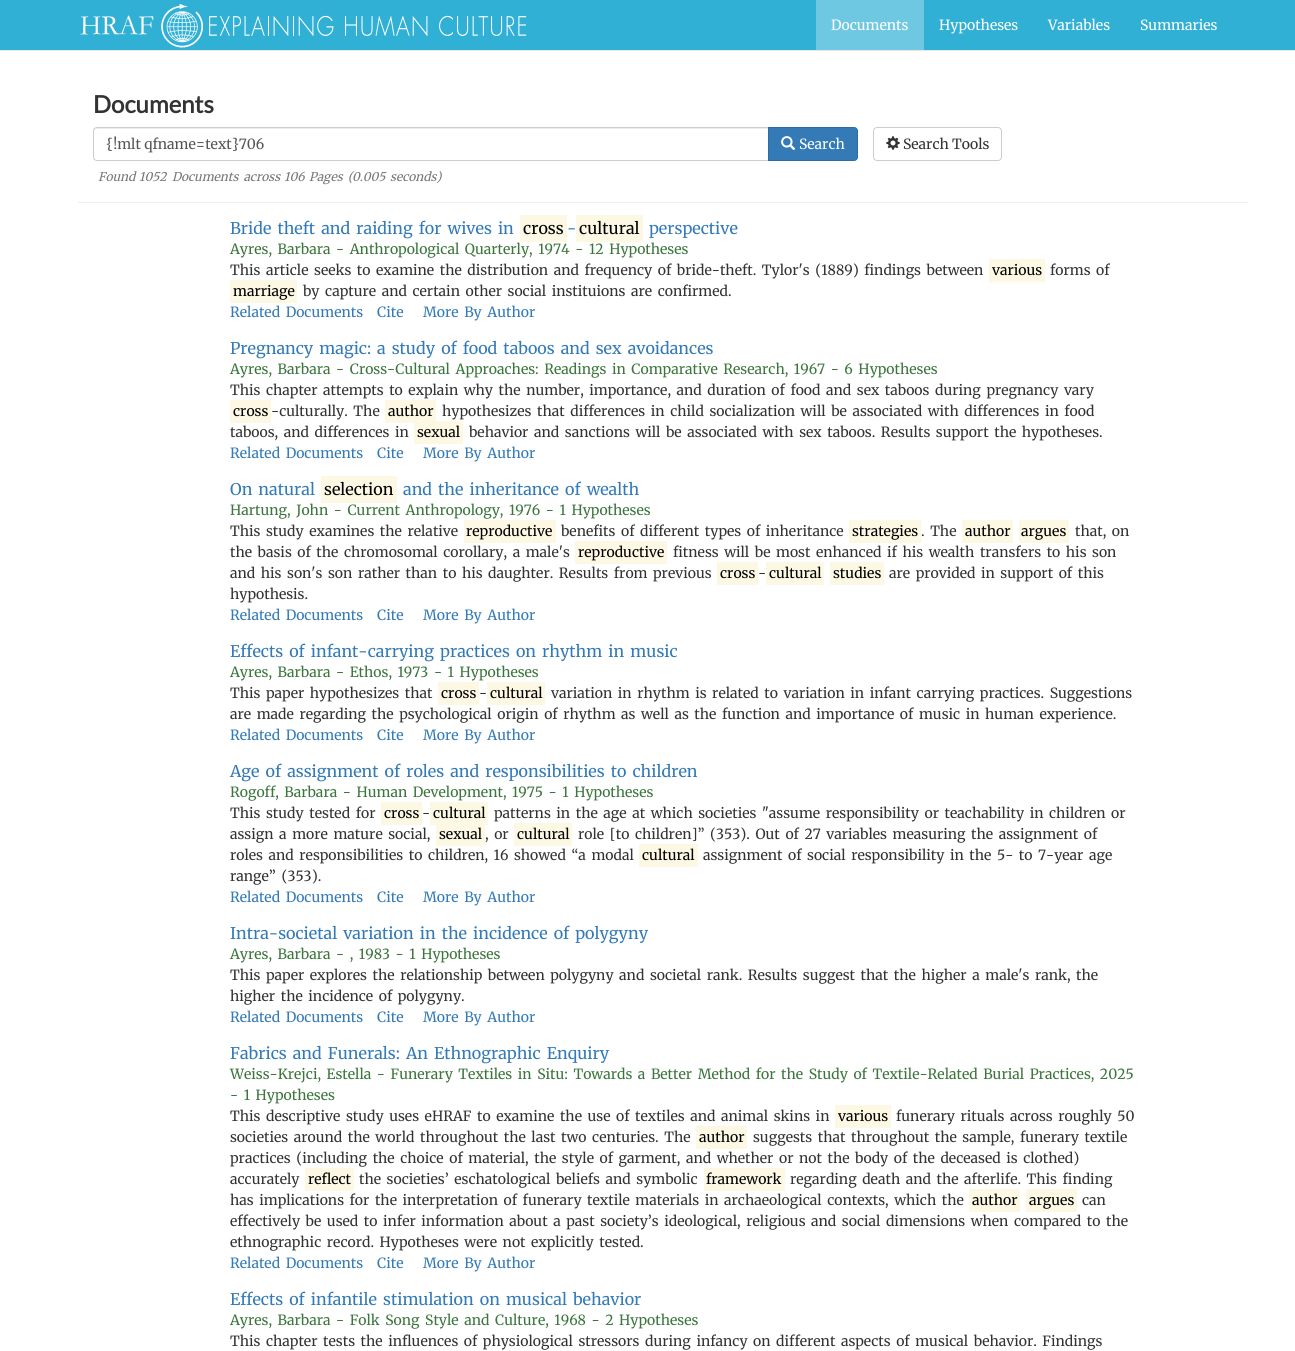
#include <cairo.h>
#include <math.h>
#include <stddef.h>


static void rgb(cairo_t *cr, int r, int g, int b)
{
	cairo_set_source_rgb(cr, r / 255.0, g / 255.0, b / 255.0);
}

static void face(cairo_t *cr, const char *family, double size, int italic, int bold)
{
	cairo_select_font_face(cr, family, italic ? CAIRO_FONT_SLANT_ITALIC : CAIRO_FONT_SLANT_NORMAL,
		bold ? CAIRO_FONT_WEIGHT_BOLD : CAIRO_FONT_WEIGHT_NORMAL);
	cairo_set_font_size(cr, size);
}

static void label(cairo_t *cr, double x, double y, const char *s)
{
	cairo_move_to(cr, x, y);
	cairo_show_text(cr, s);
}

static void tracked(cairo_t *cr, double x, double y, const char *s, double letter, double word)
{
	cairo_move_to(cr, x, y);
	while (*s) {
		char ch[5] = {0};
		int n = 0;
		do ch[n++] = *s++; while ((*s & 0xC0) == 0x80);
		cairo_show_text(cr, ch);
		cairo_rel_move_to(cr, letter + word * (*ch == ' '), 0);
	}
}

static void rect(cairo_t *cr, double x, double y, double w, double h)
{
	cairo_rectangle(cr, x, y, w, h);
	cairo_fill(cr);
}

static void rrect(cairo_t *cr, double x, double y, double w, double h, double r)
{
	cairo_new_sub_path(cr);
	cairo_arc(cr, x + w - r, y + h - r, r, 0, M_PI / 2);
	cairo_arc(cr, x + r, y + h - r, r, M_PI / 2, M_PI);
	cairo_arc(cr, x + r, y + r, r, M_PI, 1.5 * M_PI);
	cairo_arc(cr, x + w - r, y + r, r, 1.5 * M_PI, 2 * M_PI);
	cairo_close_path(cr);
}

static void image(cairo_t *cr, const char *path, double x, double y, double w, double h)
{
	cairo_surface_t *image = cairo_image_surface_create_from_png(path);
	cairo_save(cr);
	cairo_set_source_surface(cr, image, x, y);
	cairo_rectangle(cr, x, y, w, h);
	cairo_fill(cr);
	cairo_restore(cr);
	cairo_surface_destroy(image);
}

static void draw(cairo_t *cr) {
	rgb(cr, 255, 255, 255);
	cairo_paint(cr);
	rgb(cr, 49, 176, 213);
	rect(cr, 0, 0, 1295, 50);
	rgb(cr, 231, 231, 231);
	rect(cr, 0, 50, 1295, 1);
	image(cr, "image0.png", 80, 4, 447, 44);
	rgb(cr, 111, 200, 226);
	rect(cr, 816, 0, 108, 50);
	face(cr, "Merriweather Light", 14, 0, 0);
	rgb(cr, 255, 255, 255);
	label(cr, 831, 30, "Documents");
	label(cr, 939, 30, "Hypotheses");
	label(cr, 1048, 30, "Variables");
	label(cr, 1140, 30, "Summaries");
	face(cr, "Lato", 24, 0, 1);
	rgb(cr, 51, 51, 51);
	label(cr, 93, 113, "Documents");
	rgb(cr, 236, 236, 236);
	cairo_new_path(cr);
	cairo_move_to(cr, 97, 129);
	cairo_line_to(cr, 768, 129);
	cairo_line_to(cr, 768, 128);
	cairo_line_to(cr, 97, 128);
	cairo_curve_to(cr, 95, 128, 94, 129, 94, 131);
	cairo_line_to(cr, 94, 132);
	cairo_curve_to(cr, 94, 130, 95, 129, 97, 129);
	cairo_close_path(cr);
	cairo_fill(cr);
	cairo_new_path(cr);
	cairo_move_to(cr, 97, 127.5);
	cairo_line_to(cr, 768.5, 127.5);
	cairo_line_to(cr, 768.5, 160.5);
	cairo_line_to(cr, 97, 160.5);
	cairo_curve_to(cr, 95, 160.5, 93.5, 159, 93.5, 157);
	cairo_line_to(cr, 93.5, 131);
	cairo_curve_to(cr, 93.5, 129, 95, 127.5, 97, 127.5);
	cairo_close_path(cr);
	rgb(cr, 204, 204, 204);
	cairo_set_line_width(cr, 1);
	cairo_stroke(cr);
	face(cr, "Merriweather Light", 14, 0, 0);
	rgb(cr, 85, 85, 85);
	label(cr, 106, 149, "{!mlt qfname=text}706");
	rgb(cr, 51, 122, 183);
	cairo_new_path(cr);
	cairo_move_to(cr, 768.5, 127.5);
	cairo_line_to(cr, 854, 127.5);
	cairo_curve_to(cr, 856, 127.5, 857.5, 129, 857.5, 131);
	cairo_line_to(cr, 857.5, 157);
	cairo_curve_to(cr, 857.5, 159, 856, 160.5, 854, 160.5);
	cairo_line_to(cr, 768.5, 160.5);
	cairo_close_path(cr);
	cairo_fill_preserve(cr);
	rgb(cr, 46, 109, 164);
	cairo_stroke(cr);
	image(cr, "image1.png", 781, 136, 15, 14);
	rgb(cr, 255, 255, 255);
	label(cr, 799, 149, "Search");
	rrect(cr, 873.5, 127.5, 128, 33, 3.5);
	rgb(cr, 204, 204, 204);
	cairo_stroke(cr);
	image(cr, "image2.png", 886, 136, 14, 14);
	rgb(cr, 51, 51, 51);
	label(cr, 903, 149, "Search Tools");
	rgb(cr, 238, 238, 238);
	rect(cr, 78, 202, 1170, 1);
	face(cr, "Merriweather Light", 12, 1, 0);
	rgb(cr, 119, 119, 119);
	label(cr, 98, 181, "Found");
	label(cr, 139, 181, "1052");
	tracked(cr, 172, 181, "Documents across", 0, 2.25);
	label(cr, 284, 181, "106");
	tracked(cr, 309, 181, "Pages (", 0, 2.25);
	label(cr, 352, 181, "0.005");
	label(cr, 390, 181, "seconds)");
	face(cr, "Merriweather Light", 16.1, 0, 0);
	rgb(cr, 51, 122, 183);
	tracked(cr, 230, 234, "Bride theft and raiding for wives in", 0, 2.25);
	rgb(cr, 252, 248, 227);
	rect(cr, 520, 215, 47, 27);
	rgb(cr, 0, 0, 0);
	label(cr, 523, 234, "cross");
	rgb(cr, 51, 122, 183);
	label(cr, 567, 234, "-");
	rgb(cr, 252, 248, 227);
	rect(cr, 576, 215, 67, 27);
	rgb(cr, 0, 0, 0);
	label(cr, 579, 234, "cultural");
	rgb(cr, 51, 122, 183);
	label(cr, 649, 234, "perspective");
	face(cr, "Merriweather Light", 14, 0, 0);
	rgb(cr, 60, 118, 61);
	tracked(cr, 230, 254, "Ayres, Barbara - Anthropological Quarterly, 1974 - 12 Hypotheses", 0, 2.25);
	rgb(cr, 51, 51, 51);
	tracked(cr, 230, 275, "This article seeks to examine the distribution and frequency of bride-theft. Tylor's (1889) findings between", 0, 2.25);
	rgb(cr, 252, 248, 227);
	rect(cr, 989, 259, 56, 23);
	rgb(cr, 0, 0, 0);
	label(cr, 992, 275, "various");
	rgb(cr, 51, 51, 51);
	tracked(cr, 1050, 275, "forms of", 0, 2.25);
	rgb(cr, 252, 248, 227);
	rect(cr, 230, 280, 67, 23);
	rgb(cr, 0, 0, 0);
	label(cr, 233, 296, "marriage");
	rgb(cr, 51, 51, 51);
	tracked(cr, 303, 296, "by capture and certain other social instituions are confirmed.", 0, 2.25);
	rgb(cr, 51, 122, 183);
	tracked(cr, 230, 317, "Related Documents", 0, 2.25);
	label(cr, 377, 317, "Cite");
	tracked(cr, 423, 317, "More By Author", 0, 2.25);
	face(cr, "Merriweather Light", 16.1, 0, 0);
	tracked(cr, 230, 354, "Pregnancy magic:", 0, 2.25);
	tracked(cr, 377, 354, "a study of food taboos and sex avoidances", 0, 2.25);
	face(cr, "Merriweather Light", 14, 0, 0);
	rgb(cr, 60, 118, 61);
	tracked(cr, 230, 374, "Ayres, Barbara - Cross-Cultural Approaches: Readings in Comparative Research, 1967 - 6 Hypotheses", 0, 2.25);
	rgb(cr, 51, 51, 51);
	tracked(cr, 230, 395, "This chapter attempts to explain why the number, importance, and duration of food and sex taboos during pregnancy vary", 0, 2.25);
	rgb(cr, 252, 248, 227);
	rect(cr, 230, 400, 41, 23);
	rgb(cr, 0, 0, 0);
	label(cr, 233, 416, "cross");
	rgb(cr, 51, 51, 51);
	tracked(cr, 271, 416, "-culturally. The", 0, 2.25);
	rgb(cr, 252, 248, 227);
	rect(cr, 385, 400, 51, 23);
	rgb(cr, 0, 0, 0);
	label(cr, 388, 416, "author");
	rgb(cr, 51, 51, 51);
	tracked(cr, 442, 416, "hypothesizes that differences in child socialization will be associated with differences in food", 0, 2.25);
	tracked(cr, 230, 437, "taboos, and differences in", 0, 2.25);
	rgb(cr, 252, 248, 227);
	rect(cr, 414, 421, 49, 23);
	rgb(cr, 0, 0, 0);
	label(cr, 417, 437, "sexual");
	rgb(cr, 51, 51, 51);
	tracked(cr, 469, 437, "behavior and sanctions will be associated with sex taboos. Results support the hypotheses.", 0, 2.25);
	rgb(cr, 51, 122, 183);
	tracked(cr, 230, 458, "Related Documents", 0, 2.25);
	label(cr, 377, 458, "Cite");
	tracked(cr, 423, 458, "More By Author", 0, 2.25);
	face(cr, "Merriweather Light", 16.1, 0, 0);
	tracked(cr, 230, 495, "On natural", 0, 2.25);
	rgb(cr, 252, 248, 227);
	rect(cr, 321, 476, 76, 27);
	rgb(cr, 0, 0, 0);
	label(cr, 324, 495, "selection");
	rgb(cr, 51, 122, 183);
	tracked(cr, 403, 495, "and the inheritance of wealth", 0, 2.25);
	face(cr, "Merriweather Light", 14, 0, 0);
	rgb(cr, 60, 118, 61);
	tracked(cr, 230, 515, "Hartung, John - Current Anthropology, 1976 - 1 Hypotheses", 0, 2.25);
	rgb(cr, 51, 51, 51);
	tracked(cr, 230, 536, "This study examines the relative", 0, 2.25);
	rgb(cr, 252, 248, 227);
	rect(cr, 464, 520, 92, 23);
	rgb(cr, 0, 0, 0);
	label(cr, 466, 536, "reproductive");
	rgb(cr, 51, 51, 51);
	tracked(cr, 561, 536, "benefits of different types of inheritance", 0, 2.25);
	rgb(cr, 252, 248, 227);
	rect(cr, 849, 520, 72, 23);
	rgb(cr, 0, 0, 0);
	label(cr, 852, 536, "strategies");
	rgb(cr, 51, 51, 51);
	tracked(cr, 921, 536, ". The", 0, 2.25);
	rgb(cr, 252, 248, 227);
	rect(cr, 962, 520, 51, 23);
	rgb(cr, 0, 0, 0);
	label(cr, 965, 536, "author");
	rgb(cr, 252, 248, 227);
	rect(cr, 1019, 520, 50, 23);
	rgb(cr, 0, 0, 0);
	label(cr, 1021, 536, "argues");
	rgb(cr, 51, 51, 51);
	tracked(cr, 1075, 536, "that, on", 0, 2.25);
	tracked(cr, 230, 557, "the basis of the chromosomal corollary, a male's", 0, 2.25);
	rgb(cr, 252, 248, 227);
	rect(cr, 575, 541, 92, 23);
	rgb(cr, 0, 0, 0);
	label(cr, 578, 557, "reproductive");
	rgb(cr, 51, 51, 51);
	tracked(cr, 673, 557, "fitness will be most enhanced if his wealth transfers to his son", 0, 2.25);
	tracked(cr, 230, 578, "and his son's son rather than to his daughter. Results from previous", 0, 2.25);
	rgb(cr, 252, 248, 227);
	rect(cr, 717, 562, 41, 23);
	rgb(cr, 0, 0, 0);
	label(cr, 720, 578, "cross");
	rgb(cr, 51, 51, 51);
	label(cr, 758, 578, "-");
	rgb(cr, 252, 248, 227);
	rect(cr, 766, 562, 58, 23);
	rgb(cr, 0, 0, 0);
	label(cr, 769, 578, "cultural");
	rgb(cr, 252, 248, 227);
	rect(cr, 830, 562, 54, 23);
	rgb(cr, 0, 0, 0);
	label(cr, 833, 578, "studies");
	rgb(cr, 51, 51, 51);
	tracked(cr, 889, 578, "are provided in support of this", 0, 2.25);
	label(cr, 230, 599, "hypothesis.");
	rgb(cr, 51, 122, 183);
	tracked(cr, 230, 620, "Related Documents", 0, 2.25);
	label(cr, 377, 620, "Cite");
	tracked(cr, 423, 620, "More By Author", 0, 2.25);
	face(cr, "Merriweather Light", 16.1, 0, 0);
	tracked(cr, 230, 657, "Effects of infant-carrying practices on rhythm in music", 0, 2.25);
	face(cr, "Merriweather Light", 14, 0, 0);
	rgb(cr, 60, 118, 61);
	tracked(cr, 230, 677, "Ayres, Barbara - Ethos, 1973 - 1 Hypotheses", 0, 2.25);
	rgb(cr, 51, 51, 51);
	tracked(cr, 230, 698, "This paper hypothesizes that", 0, 2.25);
	rgb(cr, 252, 248, 227);
	rect(cr, 438, 682, 41, 23);
	rgb(cr, 0, 0, 0);
	label(cr, 441, 698, "cross");
	rgb(cr, 51, 51, 51);
	label(cr, 479, 698, "-");
	rgb(cr, 252, 248, 227);
	rect(cr, 487, 682, 58, 23);
	rgb(cr, 0, 0, 0);
	label(cr, 490, 698, "cultural");
	rgb(cr, 51, 51, 51);
	tracked(cr, 551, 698, "variation in rhythm is related to variation in infant carrying practices. Suggestions", 0, 2.25);
	tracked(cr, 230, 719, "are made regarding the psychological origin of rhythm as well as the function and importance of music in human experience.", 0, 2.25);
	rgb(cr, 51, 122, 183);
	tracked(cr, 230, 740, "Related Documents", 0, 2.25);
	label(cr, 377, 740, "Cite");
	tracked(cr, 423, 740, "More By Author", 0, 2.25);
	face(cr, "Merriweather Light", 16.1, 0, 0);
	tracked(cr, 230, 777, "Age of assignment of roles and responsibilities to children", 0, 2.25);
	face(cr, "Merriweather Light", 14, 0, 0);
	rgb(cr, 60, 118, 61);
	tracked(cr, 230, 797, "Rogoff, Barbara - Human Development, 1975 - 1 Hypotheses", 0, 2.25);
	rgb(cr, 51, 51, 51);
	tracked(cr, 230, 818, "This study tested for", 0, 2.25);
	rgb(cr, 252, 248, 227);
	rect(cr, 381, 802, 41, 23);
	rgb(cr, 0, 0, 0);
	label(cr, 384, 818, "cross");
	rgb(cr, 51, 51, 51);
	label(cr, 422, 818, "-");
	rgb(cr, 252, 248, 227);
	rect(cr, 430, 802, 58, 23);
	rgb(cr, 0, 0, 0);
	label(cr, 433, 818, "cultural");
	rgb(cr, 51, 51, 51);
	tracked(cr, 494, 818, "patterns in the age at which societies \"assume responsibility or teachability in children or", 0, 2.25);
	tracked(cr, 230, 839, "assign a more mature social,", 0, 2.25);
	rgb(cr, 252, 248, 227);
	rect(cr, 436, 825, 49, 21);
	rgb(cr, 0, 0, 0);
	label(cr, 439, 839, "sexual");
	rgb(cr, 51, 51, 51);
	tracked(cr, 485, 839, ", or", 0, 2.25);
	rgb(cr, 252, 248, 227);
	rect(cr, 514, 823, 58, 23);
	rgb(cr, 0, 0, 0);
	label(cr, 517, 839, "cultural");
	rgb(cr, 51, 51, 51);
	tracked(cr, 578, 839, "role [to children]” (353). Out of 27 variables measuring the assignment of", 0, 2.25);
	tracked(cr, 230, 860, "roles and responsibilities to children, 16 showed “a modal", 0, 2.25);
	rgb(cr, 252, 248, 227);
	rect(cr, 639, 844, 59, 23);
	rgb(cr, 0, 0, 0);
	label(cr, 642, 860, "cultural");
	rgb(cr, 51, 51, 51);
	tracked(cr, 703, 860, "assignment of social responsibility in the 5- to 7-year age", 0, 2.25);
	tracked(cr, 230, 881, "range” (353).", 0, 2.25);
	rgb(cr, 51, 122, 183);
	tracked(cr, 230, 902, "Related Documents", 0, 2.25);
	label(cr, 377, 902, "Cite");
	tracked(cr, 423, 902, "More By Author", 0, 2.25);
	face(cr, "Merriweather Light", 16.1, 0, 0);
	tracked(cr, 230, 939, "Intra-societal variation in the incidence of polygyny", 0, 2.25);
	face(cr, "Merriweather Light", 14, 0, 0);
	rgb(cr, 60, 118, 61);
	tracked(cr, 230, 959, "Ayres, Barbara - , 1983 - 1 Hypotheses", 0, 2.25);
	rgb(cr, 51, 51, 51);
	tracked(cr, 230, 980, "This paper explores the relationship between polygyny and societal rank. Results suggest that the higher a male's rank, the", 0, 2.25);
	tracked(cr, 230, 1001, "higher the incidence of polygyny.", 0, 2.25);
	rgb(cr, 51, 122, 183);
	tracked(cr, 230, 1022, "Related Documents", 0, 2.25);
	label(cr, 377, 1022, "Cite");
	tracked(cr, 423, 1022, "More By Author", 0, 2.25);
	face(cr, "Merriweather Light", 16.1, 0, 0);
	tracked(cr, 230, 1059, "Fabrics and Funerals: An Ethnographic Enquiry", 0, 2.25);
	face(cr, "Merriweather Light", 14, 0, 0);
	rgb(cr, 60, 118, 61);
	tracked(cr, 230, 1079, "Weiss-Krejci, Estella - Funerary Textiles in Situ: Towards a Better Method for the Study of Textile-Related Burial Practices, 2025", 0, 2.25);
	tracked(cr, 230, 1100, "- 1 Hypotheses", 0, 2.25);
	rgb(cr, 51, 51, 51);
	tracked(cr, 230, 1121, "This descriptive study uses eHRAF to examine the use of textiles and animal skins in", 0, 2.25);
	rgb(cr, 252, 248, 227);
	rect(cr, 835, 1105, 56, 23);
	rgb(cr, 0, 0, 0);
	label(cr, 838, 1121, "various");
	rgb(cr, 51, 51, 51);
	tracked(cr, 896, 1121, "funerary rituals across roughly 50", 0, 2.25);
	tracked(cr, 230, 1142, "societies around the world throughout the last two centuries. The", 0, 2.25);
	rgb(cr, 252, 248, 227);
	rect(cr, 696, 1126, 51, 23);
	rgb(cr, 0, 0, 0);
	label(cr, 699, 1142, "author");
	rgb(cr, 51, 51, 51);
	tracked(cr, 753, 1142, "suggests that throughout the sample, funerary textile", 0, 2.25);
	tracked(cr, 230, 1163, "practices (including the choice of material, the style of garment, and whether or not the body of the deceased is clothed)", 0, 2.25);
	label(cr, 230, 1184, "accurately");
	rgb(cr, 252, 248, 227);
	rect(cr, 305, 1168, 49, 23);
	rgb(cr, 0, 0, 0);
	label(cr, 308, 1184, "reflect");
	rgb(cr, 51, 51, 51);
	tracked(cr, 359, 1184, "the societies’ eschatological beliefs and symbolic", 0, 2.25);
	rgb(cr, 252, 248, 227);
	rect(cr, 704, 1168, 81, 23);
	rgb(cr, 0, 0, 0);
	label(cr, 706, 1184, "framework");
	rgb(cr, 51, 51, 51);
	tracked(cr, 790, 1184, "regarding death and the afterlife. This finding", 0, 2.25);
	tracked(cr, 230, 1205, "has implications for the interpretation of funerary textile materials in archaeological contexts, which the", 0, 2.25);
	rgb(cr, 252, 248, 227);
	rect(cr, 969, 1189, 51, 23);
	rgb(cr, 0, 0, 0);
	label(cr, 972, 1205, "author");
	rgb(cr, 252, 248, 227);
	rect(cr, 1026, 1189, 51, 23);
	rgb(cr, 0, 0, 0);
	label(cr, 1029, 1205, "argues");
	rgb(cr, 51, 51, 51);
	label(cr, 1082, 1205, "can");
	tracked(cr, 230, 1226, "effectively be used to infer information about a past society’s ideological, religious and social dimensions when compared to the", 0, 2.25);
	tracked(cr, 230, 1247, "ethnographic record. Hypotheses were not explicitly tested.", 0, 2.25);
	rgb(cr, 51, 122, 183);
	tracked(cr, 230, 1268, "Related Documents", 0, 2.25);
	label(cr, 377, 1268, "Cite");
	tracked(cr, 423, 1268, "More By Author", 0, 2.25);
	face(cr, "Merriweather Light", 16.1, 0, 0);
	tracked(cr, 230, 1305, "Effects of infantile stimulation on musical behavior", 0, 2.25);
	face(cr, "Merriweather Light", 14, 0, 0);
	rgb(cr, 60, 118, 61);
	tracked(cr, 230, 1325, "Ayres, Barbara - Folk Song Style and Culture, 1968 - 2 Hypotheses", 0, 2.25);
	rgb(cr, 51, 51, 51);
	tracked(cr, 230, 1346, "This chapter tests the influences of physiological stressors during infancy on different aspects of musical behavior. Findings", 0, 2.25);
}

int main(void) {
	cairo_surface_t *surface = cairo_image_surface_create(CAIRO_FORMAT_RGB24, 1295, 1351);
	cairo_t *cr = cairo_create(surface);
	cairo_font_options_t *options = cairo_font_options_create();
	cairo_font_options_set_hint_metrics(options, CAIRO_HINT_METRICS_OFF);
	cairo_font_options_set_hint_style(options, CAIRO_HINT_STYLE_NONE);
	cairo_set_font_options(cr, options);
	cairo_set_miter_limit(cr, 4);
	draw(cr);
	cairo_surface_write_to_png(surface, "render.png");
	cairo_font_options_destroy(options);
	cairo_destroy(cr);
	cairo_surface_destroy(surface);
	return 0;
}
